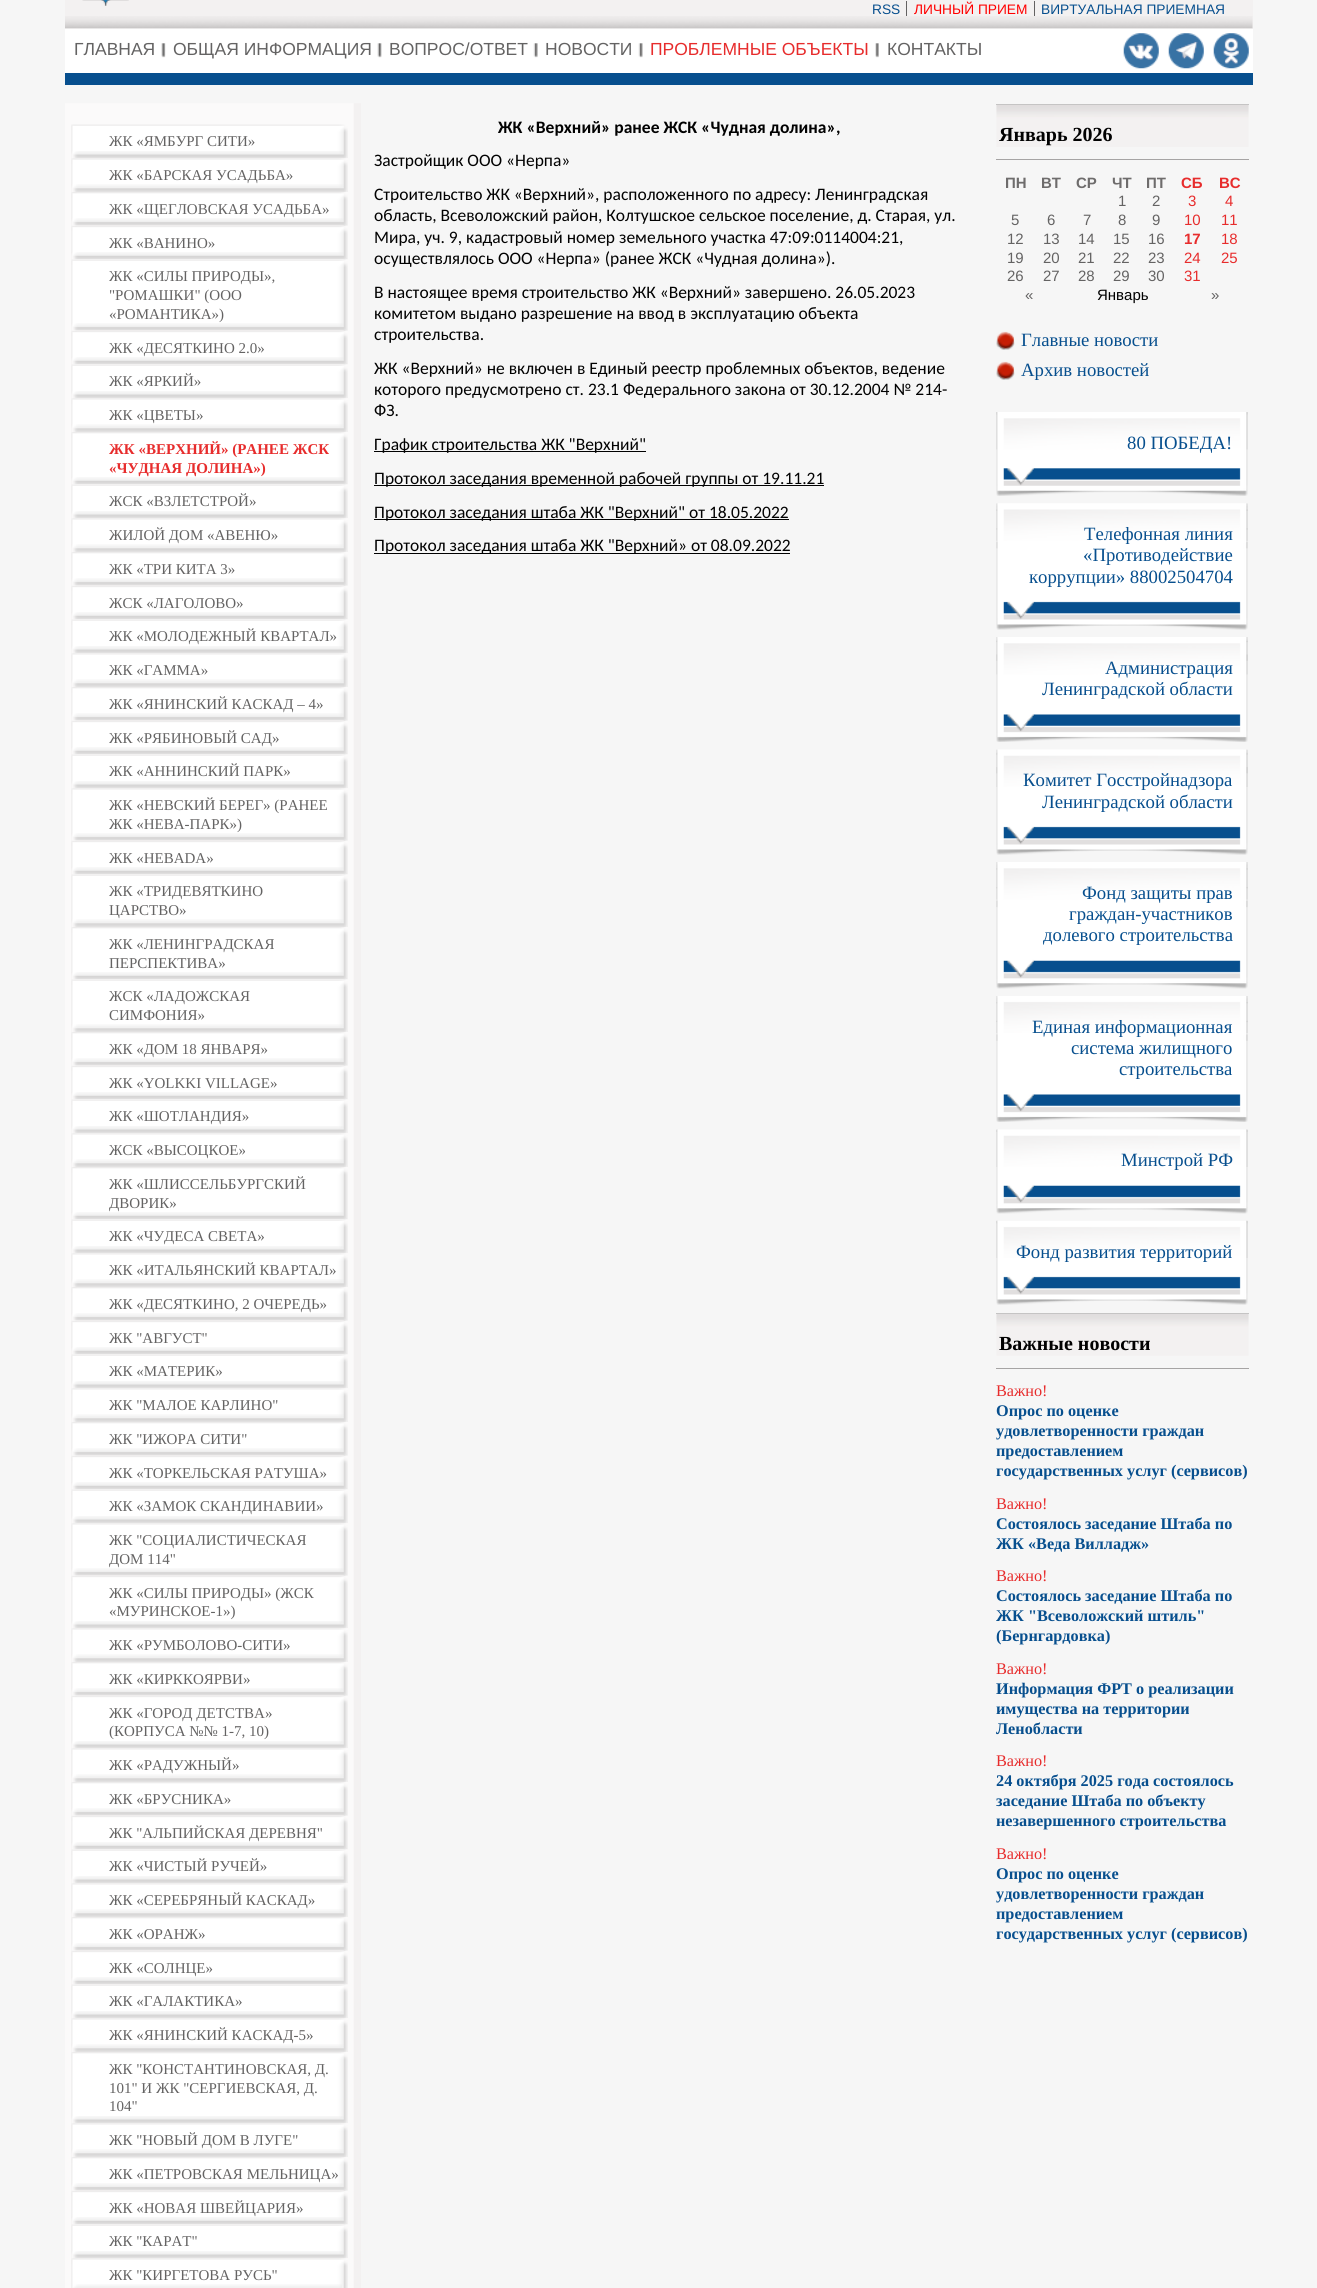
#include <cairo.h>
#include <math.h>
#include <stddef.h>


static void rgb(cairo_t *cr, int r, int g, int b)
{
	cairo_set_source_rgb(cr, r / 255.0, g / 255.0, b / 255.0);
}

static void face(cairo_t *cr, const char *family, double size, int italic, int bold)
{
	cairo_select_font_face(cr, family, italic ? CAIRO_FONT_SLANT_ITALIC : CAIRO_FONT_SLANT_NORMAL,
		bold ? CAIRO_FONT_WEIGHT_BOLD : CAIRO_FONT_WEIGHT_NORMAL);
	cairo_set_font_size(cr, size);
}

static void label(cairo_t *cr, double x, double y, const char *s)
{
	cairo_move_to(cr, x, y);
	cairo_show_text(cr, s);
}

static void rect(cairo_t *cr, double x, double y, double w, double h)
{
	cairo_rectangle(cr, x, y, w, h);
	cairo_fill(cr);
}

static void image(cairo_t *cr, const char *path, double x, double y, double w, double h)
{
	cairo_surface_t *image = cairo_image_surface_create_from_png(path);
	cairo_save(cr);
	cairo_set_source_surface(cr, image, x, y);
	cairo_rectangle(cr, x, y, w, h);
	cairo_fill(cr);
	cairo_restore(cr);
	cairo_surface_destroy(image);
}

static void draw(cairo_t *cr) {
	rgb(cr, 246, 246, 246);
	cairo_paint(cr);
	rgb(cr, 243, 241, 241);
	rect(cr, 65, 0, 1188, 29);
	image(cr, "image0.png", 65, 16, 1188, 13);
	image(cr, "image1.png", 82, 0, 47, 6);
	rgb(cr, 100, 98, 98);
	rect(cr, 906, 1, 1, 15);
	face(cr, "Liberation Sans", 13.75, 0, 0);
	rgb(cr, 7, 79, 142);
	label(cr, 872, 14, "RSS");
	rgb(cr, 100, 98, 98);
	rect(cr, 1034, 1, 1, 15);
	rgb(cr, 255, 0, 0);
	label(cr, 914, 14, "ЛИЧНЫЙ ПРИЕМ");
	rgb(cr, 7, 79, 142);
	label(cr, 1041, 14, "ВИРТУАЛЬНАЯ ПРИЕМНАЯ");
	rgb(cr, 255, 255, 255);
	rect(cr, 65, 29, 1188, 44);
	rgb(cr, 7, 79, 142);
	rect(cr, 65, 73, 1188, 12);
	image(cr, "image2.png", 161, 43, 5, 15);
	face(cr, "Liberation Sans", 17.5, 0, 0);
	rgb(cr, 100, 99, 99);
	label(cr, 74, 55, "ГЛАВНАЯ");
	image(cr, "image3.png", 377, 43, 5, 15);
	label(cr, 173, 55, "ОБЩАЯ ИНФОРМАЦИЯ");
	image(cr, "image4.png", 533, 43, 5, 15);
	label(cr, 389, 55, "ВОПРОС/ОТВЕТ");
	image(cr, "image5.png", 638, 43, 5, 15);
	label(cr, 545, 55, "НОВОСТИ");
	image(cr, "image6.png", 875, 43, 4, 15);
	rgb(cr, 231, 44, 44);
	label(cr, 650, 55, "ПРОБЛЕМНЫЕ ОБЪЕКТЫ");
	rgb(cr, 100, 99, 99);
	label(cr, 887, 55, "КОНТАКТЫ");
	image(cr, "image7.png", 1123, 33, 36, 36);
	image(cr, "image8.png", 1168, 33, 36, 36);
	image(cr, "image9.png", 1213, 33, 36, 36);
	image(cr, "image10.png", 65, 103, 296, 2185);
	image(cr, "image11.png", 71, 124, 277, 35);
	image(cr, "image12.png", 71, 151, 276, 7);
	face(cr, "Liberation Serif", 15, 0, 0);
	label(cr, 109, 146, "ЖК «ЯМБУРГ СИТИ»");
	image(cr, "image13.png", 71, 158, 277, 34);
	image(cr, "image14.png", 71, 184, 276, 8);
	label(cr, 109, 180, "ЖК «БАРСКАЯ УСАДЬБА»");
	image(cr, "image15.png", 71, 192, 277, 34);
	image(cr, "image16.png", 71, 218, 275, 8);
	label(cr, 109, 214, "ЖК «ЩЕГЛОВСКАЯ УСАДЬБА»");
	image(cr, "image17.png", 71, 225, 277, 35);
	image(cr, "image18.png", 71, 252, 275, 8);
	label(cr, 109, 248, "ЖК «ВАНИНО»");
	image(cr, "image19.png", 71, 259, 277, 72);
	image(cr, "image16.png", 71, 323, 275, 8);
	label(cr, 109, 281, "ЖК «СИЛЫ ПРИРОДЫ»,");
	label(cr, 109, 300, "\"РОМАШКИ\" (ООО");
	label(cr, 109, 319, "«РОМАНТИКА»)");
	image(cr, "image17.png", 71, 330, 277, 35);
	image(cr, "image18.png", 71, 357, 275, 8);
	label(cr, 109, 353, "ЖК «ДЕСЯТКИНО 2.0»");
	image(cr, "image20.png", 71, 364, 277, 35);
	image(cr, "image12.png", 71, 391, 276, 7);
	label(cr, 109, 386, "ЖК «ЯРКИЙ»");
	image(cr, "image21.png", 71, 398, 277, 34);
	image(cr, "image14.png", 71, 424, 276, 8);
	label(cr, 109, 420, "ЖК «ЦВЕТЫ»");
	image(cr, "image22.png", 71, 432, 277, 53);
	image(cr, "image18.png", 71, 477, 275, 8);
	face(cr, "Liberation Serif", 15, 0, 1);
	rgb(cr, 231, 44, 44);
	label(cr, 109, 454, "ЖК «ВЕРХНИЙ» (РАНЕЕ ЖСК");
	label(cr, 109, 473, "«ЧУДНАЯ ДОЛИНА»)");
	image(cr, "image20.png", 71, 484, 277, 35);
	image(cr, "image12.png", 71, 511, 276, 7);
	face(cr, "Liberation Serif", 15, 0, 0);
	rgb(cr, 100, 99, 99);
	label(cr, 109, 506, "ЖСК «ВЗЛЕТСТРОЙ»");
	image(cr, "image21.png", 71, 518, 277, 34);
	image(cr, "image14.png", 71, 544, 276, 8);
	label(cr, 109, 540, "ЖИЛОЙ ДОМ «АВЕНЮ»");
	image(cr, "image23.png", 71, 552, 277, 34);
	image(cr, "image16.png", 71, 578, 275, 8);
	label(cr, 109, 574, "ЖК «ТРИ КИТА 3»");
	image(cr, "image17.png", 71, 585, 277, 35);
	image(cr, "image18.png", 71, 612, 275, 8);
	label(cr, 109, 608, "ЖСК «ЛАГОЛОВО»");
	image(cr, "image20.png", 71, 619, 277, 35);
	image(cr, "image12.png", 71, 646, 276, 7);
	label(cr, 109, 641, "ЖК «МОЛОДЕЖНЫЙ КВАРТАЛ»");
	image(cr, "image21.png", 71, 653, 277, 34);
	image(cr, "image14.png", 71, 679, 276, 8);
	label(cr, 109, 675, "ЖК «ГАММА»");
	image(cr, "image23.png", 71, 687, 277, 34);
	image(cr, "image16.png", 71, 713, 275, 8);
	label(cr, 109, 709, "ЖК «ЯНИНСКИЙ КАСКАД – 4»");
	image(cr, "image17.png", 71, 720, 277, 35);
	image(cr, "image18.png", 71, 747, 275, 8);
	label(cr, 109, 743, "ЖК «РЯБИНОВЫЙ САД»");
	image(cr, "image20.png", 71, 754, 277, 35);
	image(cr, "image12.png", 71, 781, 276, 7);
	label(cr, 109, 776, "ЖК «АННИНСКИЙ ПАРК»");
	image(cr, "image24.png", 71, 788, 277, 53);
	image(cr, "image16.png", 71, 833, 275, 8);
	label(cr, 109, 810, "ЖК «НЕВСКИЙ БЕРЕГ» (РАНЕЕ");
	label(cr, 109, 829, "ЖК «НЕВА-ПАРК»)");
	image(cr, "image17.png", 71, 840, 277, 35);
	image(cr, "image18.png", 71, 867, 275, 8);
	label(cr, 109, 863, "ЖК «НЕВАDA»");
	image(cr, "image25.png", 71, 874, 277, 53);
	image(cr, "image14.png", 71, 919, 276, 8);
	label(cr, 109, 896, "ЖК «ТРИДЕВЯТКИНО");
	label(cr, 109, 915, "ЦАРСТВО»");
	image(cr, "image26.png", 71, 927, 277, 53);
	image(cr, "image18.png", 71, 972, 275, 8);
	label(cr, 109, 949, "ЖК «ЛЕНИНГРАДСКАЯ");
	label(cr, 109, 968, "ПЕРСПЕКТИВА»");
	image(cr, "image25.png", 71, 979, 277, 53);
	image(cr, "image14.png", 71, 1024, 276, 8);
	label(cr, 109, 1001, "ЖСК «ЛАДОЖСКАЯ");
	label(cr, 109, 1020, "СИМФОНИЯ»");
	image(cr, "image23.png", 71, 1032, 277, 34);
	image(cr, "image16.png", 71, 1058, 275, 8);
	label(cr, 109, 1054, "ЖК «ДОМ 18 ЯНВАРЯ»");
	image(cr, "image17.png", 71, 1065, 277, 35);
	image(cr, "image18.png", 71, 1092, 275, 8);
	label(cr, 109, 1088, "ЖК «YOLKKI VILLAGE»");
	image(cr, "image20.png", 71, 1099, 277, 35);
	image(cr, "image12.png", 71, 1126, 276, 7);
	label(cr, 109, 1121, "ЖК «ШОТЛАНДИЯ»");
	image(cr, "image21.png", 71, 1133, 277, 34);
	image(cr, "image14.png", 71, 1159, 276, 8);
	label(cr, 109, 1155, "ЖСК «ВЫСОЦКОЕ»");
	image(cr, "image22.png", 71, 1167, 277, 53);
	image(cr, "image18.png", 71, 1212, 275, 8);
	label(cr, 109, 1189, "ЖК «ШЛИССЕЛЬБУРГСКИЙ");
	label(cr, 109, 1208, "ДВОРИК»");
	image(cr, "image20.png", 71, 1219, 277, 35);
	image(cr, "image12.png", 71, 1246, 276, 7);
	label(cr, 109, 1241, "ЖК «ЧУДЕСА СВЕТА»");
	image(cr, "image21.png", 71, 1253, 277, 34);
	image(cr, "image14.png", 71, 1279, 276, 8);
	label(cr, 109, 1275, "ЖК «ИТАЛЬЯНСКИЙ КВАРТАЛ»");
	image(cr, "image23.png", 71, 1287, 277, 34);
	image(cr, "image16.png", 71, 1313, 275, 8);
	label(cr, 109, 1309, "ЖК «ДЕСЯТКИНО, 2 ОЧЕРЕДЬ»");
	image(cr, "image17.png", 71, 1320, 277, 35);
	image(cr, "image18.png", 71, 1347, 275, 8);
	label(cr, 109, 1343, "ЖК \"АВГУСТ\"");
	image(cr, "image20.png", 71, 1354, 277, 35);
	image(cr, "image12.png", 71, 1381, 276, 7);
	label(cr, 109, 1376, "ЖК «МАТЕРИК»");
	image(cr, "image21.png", 71, 1388, 277, 34);
	image(cr, "image14.png", 71, 1414, 276, 8);
	label(cr, 109, 1410, "ЖК \"МАЛОЕ КАРЛИНО\"");
	image(cr, "image23.png", 71, 1422, 277, 34);
	image(cr, "image16.png", 71, 1448, 275, 8);
	label(cr, 109, 1444, "ЖК \"ИЖОРА СИТИ\"");
	image(cr, "image17.png", 71, 1455, 277, 35);
	image(cr, "image18.png", 71, 1482, 275, 8);
	label(cr, 109, 1478, "ЖК «ТОРКЕЛЬСКАЯ РАТУША»");
	image(cr, "image20.png", 71, 1489, 277, 35);
	image(cr, "image12.png", 71, 1516, 276, 7);
	label(cr, 109, 1511, "ЖК «ЗАМОК СКАНДИНАВИИ»");
	image(cr, "image24.png", 71, 1523, 277, 53);
	image(cr, "image16.png", 71, 1568, 275, 8);
	label(cr, 109, 1545, "ЖК \"СОЦИАЛИСТИЧЕСКАЯ");
	label(cr, 109, 1564, "ДОМ 114\"");
	image(cr, "image27.png", 71, 1575, 277, 54);
	image(cr, "image12.png", 71, 1621, 276, 7);
	label(cr, 109, 1598, "ЖК «СИЛЫ ПРИРОДЫ» (ЖСК");
	label(cr, 109, 1616, "«МУРИНСКОЕ-1»)");
	image(cr, "image21.png", 71, 1628, 277, 34);
	image(cr, "image14.png", 71, 1654, 276, 8);
	label(cr, 109, 1650, "ЖК «РУМБОЛОВО-СИТИ»");
	image(cr, "image23.png", 71, 1662, 277, 34);
	image(cr, "image16.png", 71, 1688, 275, 8);
	label(cr, 109, 1684, "ЖК «КИРККОЯРВИ»");
	image(cr, "image27.png", 71, 1695, 277, 54);
	image(cr, "image12.png", 71, 1741, 276, 7);
	label(cr, 109, 1718, "ЖК «ГОРОД ДЕТСТВА»");
	label(cr, 109, 1736, "(КОРПУСА №№ 1-7, 10)");
	image(cr, "image21.png", 71, 1748, 277, 34);
	image(cr, "image14.png", 71, 1774, 276, 8);
	label(cr, 109, 1770, "ЖК «РАДУЖНЫЙ»");
	image(cr, "image23.png", 71, 1782, 277, 34);
	image(cr, "image16.png", 71, 1808, 275, 8);
	label(cr, 109, 1804, "ЖК «БРУСНИКА»");
	image(cr, "image17.png", 71, 1815, 277, 35);
	image(cr, "image18.png", 71, 1842, 275, 8);
	label(cr, 109, 1838, "ЖК \"АЛЬПИЙСКАЯ ДЕРЕВНЯ\"");
	image(cr, "image20.png", 71, 1849, 277, 35);
	image(cr, "image12.png", 71, 1876, 276, 7);
	label(cr, 109, 1871, "ЖК «ЧИСТЫЙ РУЧЕЙ»");
	image(cr, "image21.png", 71, 1883, 277, 34);
	image(cr, "image14.png", 71, 1909, 276, 8);
	label(cr, 109, 1905, "ЖК «СЕРЕБРЯНЫЙ КАСКАД»");
	image(cr, "image23.png", 71, 1917, 277, 34);
	image(cr, "image16.png", 71, 1943, 275, 8);
	label(cr, 109, 1939, "ЖК «ОРАНЖ»");
	image(cr, "image28.png", 71, 1950, 277, 35);
	image(cr, "image18.png", 71, 1977, 275, 8);
	label(cr, 109, 1973, "ЖК «СОЛНЦЕ»");
	image(cr, "image20.png", 71, 1984, 277, 35);
	image(cr, "image12.png", 71, 2011, 276, 7);
	label(cr, 109, 2006, "ЖК «ГАЛАКТИКА»");
	image(cr, "image21.png", 71, 2018, 277, 34);
	image(cr, "image14.png", 71, 2044, 276, 8);
	label(cr, 109, 2040, "ЖК «ЯНИНСКИЙ КАСКАД-5»");
	image(cr, "image29.png", 71, 2052, 277, 72);
	image(cr, "image12.png", 71, 2116, 276, 7);
	label(cr, 109, 2074, "ЖК \"КОНСТАНТИНОВСКАЯ, Д.");
	label(cr, 109, 2093, "101\" И ЖК \"СЕРГИЕВСКАЯ, Д.");
	label(cr, 109, 2111, "104\"");
	image(cr, "image21.png", 71, 2123, 277, 34);
	image(cr, "image14.png", 71, 2149, 276, 8);
	label(cr, 109, 2145, "ЖК \"НОВЫЙ ДОМ В ЛУГЕ\"");
	image(cr, "image23.png", 71, 2157, 277, 34);
	image(cr, "image16.png", 71, 2183, 275, 8);
	label(cr, 109, 2179, "ЖК «ПЕТРОВСКАЯ МЕЛЬНИЦА»");
	image(cr, "image17.png", 71, 2190, 277, 35);
	image(cr, "image18.png", 71, 2217, 275, 8);
	label(cr, 109, 2213, "ЖК «НОВАЯ ШВЕЙЦАРИЯ»");
	image(cr, "image20.png", 71, 2224, 277, 35);
	image(cr, "image12.png", 71, 2251, 276, 7);
	label(cr, 109, 2246, "ЖК \"КАРАТ\"");
	image(cr, "image30.png", 71, 2258, 277, 30);
	image(cr, "image31.png", 73, 2284, 269, 4);
	label(cr, 109, 2280, "ЖК \"КИРГЕТОВА РУСЬ\"");
	face(cr, "Carlito", 17.5, 0, 1);
	rgb(cr, 1, 1, 1);
	label(cr, 498, 133, "ЖК «Верхний» ранее ЖСК «Чудная долина»,");
	face(cr, "Carlito", 17.5, 0, 0);
	label(cr, 374, 166, "Застройщик ООО «Нерпа»");
	label(cr, 374, 200, "Строительство ЖК «Верхний», расположенного по адресу: Ленинградская");
	label(cr, 374, 221, "область, Всеволожский район, Колтушское сельское поселение, д. Старая, ул.");
	label(cr, 374, 243, "Мира, уч. 9, кадастровый номер земельного участка 47:09:0114004:21,");
	label(cr, 374, 264, "осуществлялось ООО «Нерпа» (ранее ЖСК «Чудная долина»).");
	label(cr, 374, 298, "В настоящее время строительство ЖК «Верхний» завершено. 26.05.2023");
	label(cr, 374, 319, "комитетом выдано разрешение на ввод в эксплуатацию объекта");
	label(cr, 374, 340, "строительства.");
	label(cr, 374, 374, "ЖК «Верхний» не включен в Единый реестр проблемных объектов, ведение");
	label(cr, 374, 395, "которого предусмотрено ст. 23.1 Федерального закона от 30.12.2004 № 214-");
	label(cr, 374, 416, "ФЗ.");
	rect(cr, 374, 451, 272, 1);
	label(cr, 374, 450, "График строительства ЖК \"Верхний\"");
	rect(cr, 374, 485, 450, 1);
	label(cr, 374, 484, "Протокол заседания временной рабочей группы от 19.11.21");
	rect(cr, 374, 519, 415, 1);
	label(cr, 374, 518, "Протокол заседания штаба ЖК \"Верхний\" от 18.05.2022");
	rect(cr, 374, 553, 416, 1);
	label(cr, 374, 551, "Протокол заседания штаба ЖК \"Верхний» от 08.09.2022");
	image(cr, "image32.png", 996, 105, 253, 42);
	rgb(cr, 197, 196, 196);
	rect(cr, 996, 104, 253, 1);
	rgb(cr, 166, 164, 164);
	rect(cr, 996, 159, 253, 1);
	face(cr, "Liberation Serif", 20, 0, 1);
	rgb(cr, 1, 1, 1);
	label(cr, 999, 141, "Январь 2026");
	face(cr, "Liberation Sans", 15, 0, 1);
	rgb(cr, 110, 108, 108);
	label(cr, 1005, 188, "ПН");
	label(cr, 1041, 188, "ВТ");
	label(cr, 1076, 188, "СР");
	label(cr, 1112, 188, "ЧТ");
	label(cr, 1146, 188, "ПТ");
	rgb(cr, 231, 44, 44);
	label(cr, 1181, 188, "СБ");
	label(cr, 1219, 188, "ВС");
	face(cr, "Liberation Sans", 15, 0, 0);
	rgb(cr, 100, 99, 99);
	label(cr, 1118, 206, "1");
	label(cr, 1152, 206, "2");
	rgb(cr, 231, 44, 44);
	label(cr, 1188, 206, "3");
	label(cr, 1225, 206, "4");
	rgb(cr, 100, 99, 99);
	label(cr, 1011, 225, "5");
	label(cr, 1047, 225, "6");
	label(cr, 1083, 225, "7");
	label(cr, 1118, 225, "8");
	label(cr, 1152, 225, "9");
	rgb(cr, 231, 44, 44);
	label(cr, 1184, 225, "10");
	label(cr, 1221, 225, "11");
	rgb(cr, 100, 99, 99);
	label(cr, 1007, 244, "12");
	label(cr, 1043, 244, "13");
	label(cr, 1078, 244, "14");
	label(cr, 1113, 244, "15");
	label(cr, 1148, 244, "16");
	face(cr, "Liberation Sans", 15, 0, 1);
	rgb(cr, 231, 44, 44);
	label(cr, 1184, 244, "17");
	face(cr, "Liberation Sans", 15, 0, 0);
	label(cr, 1221, 244, "18");
	rgb(cr, 100, 99, 99);
	label(cr, 1007, 263, "19");
	label(cr, 1043, 263, "20");
	label(cr, 1078, 263, "21");
	label(cr, 1113, 263, "22");
	label(cr, 1148, 263, "23");
	rgb(cr, 231, 44, 44);
	label(cr, 1184, 263, "24");
	label(cr, 1221, 263, "25");
	rgb(cr, 100, 99, 99);
	label(cr, 1007, 281, "26");
	label(cr, 1043, 281, "27");
	label(cr, 1078, 281, "28");
	label(cr, 1113, 281, "29");
	label(cr, 1148, 281, "30");
	rgb(cr, 231, 44, 44);
	label(cr, 1184, 281, "31");
	rgb(cr, 100, 99, 99);
	label(cr, 1025, 300, "«");
	rgb(cr, 1, 1, 1);
	label(cr, 1097, 300, "Январь");
	rgb(cr, 100, 99, 99);
	label(cr, 1211, 300, "»");
	image(cr, "image33.png", 996, 331, 19, 19);
	face(cr, "Liberation Serif", 18.75, 0, 0);
	rgb(cr, 7, 79, 142);
	label(cr, 1021, 346, "Главные новости");
	image(cr, "image33.png", 996, 361, 19, 19);
	label(cr, 1021, 376, "Архив новостей");
	image(cr, "image34.png", 996, 412, 252, 84);
	image(cr, "image35.png", 996, 412, 252, 38);
	label(cr, 1127, 449, "80 ПОБЕДА!");
	image(cr, "image36.png", 996, 503, 252, 127);
	image(cr, "image37.png", 996, 504, 252, 37);
	label(cr, 1084, 540, "Телефонная линия");
	label(cr, 1083, 561, "«Противодействие");
	label(cr, 1029, 583, "коррупции» 88002504704");
	image(cr, "image38.png", 996, 637, 252, 105);
	image(cr, "image39.png", 996, 637, 252, 38);
	label(cr, 1105, 674, "Администрация");
	label(cr, 1042, 695, "Ленинградской области");
	image(cr, "image40.png", 996, 749, 252, 106);
	image(cr, "image41.png", 996, 750, 252, 37);
	label(cr, 1023, 786, "Комитет Госстройнадзора");
	label(cr, 1042, 808, "Ленинградской области");
	image(cr, "image42.png", 996, 862, 252, 127);
	image(cr, "image43.png", 996, 862, 252, 38);
	label(cr, 1082, 899, "Фонд защиты прав");
	label(cr, 1069, 920, "граждан-участников");
	label(cr, 1043, 941, "долевого строительства");
	image(cr, "image44.png", 996, 996, 252, 126);
	image(cr, "image45.png", 996, 996, 252, 37);
	label(cr, 1032, 1033, "Единая информационная");
	label(cr, 1071, 1054, "система жилищного");
	label(cr, 1119, 1075, "строительства");
	image(cr, "image46.png", 996, 1129, 252, 85);
	image(cr, "image47.png", 996, 1130, 252, 37);
	label(cr, 1121, 1166, "Минстрой РФ");
	image(cr, "image48.png", 996, 1220, 252, 85);
	image(cr, "image49.png", 996, 1221, 252, 37);
	label(cr, 1016, 1258, "Фонд развития территорий");
	image(cr, "image50.png", 996, 1314, 253, 42);
	rgb(cr, 197, 196, 196);
	rect(cr, 996, 1313, 253, 1);
	rgb(cr, 166, 164, 164);
	rect(cr, 996, 1368, 253, 1);
	face(cr, "Liberation Serif", 20, 0, 1);
	rgb(cr, 1, 1, 1);
	label(cr, 999, 1350, "Важные новости");
	face(cr, "Liberation Serif", 16.25, 0, 0);
	rgb(cr, 231, 44, 44);
	label(cr, 996, 1396, "Важно!");
	face(cr, "Liberation Serif", 16.25, 0, 1);
	rgb(cr, 7, 79, 142);
	label(cr, 996, 1416, "Опрос по оценке");
	label(cr, 996, 1436, "удовлетворенности граждан");
	label(cr, 996, 1456, "предоставлением");
	label(cr, 996, 1476, "государственных услуг (сервисов)");
	face(cr, "Liberation Serif", 16.25, 0, 0);
	rgb(cr, 231, 44, 44);
	label(cr, 996, 1509, "Важно!");
	face(cr, "Liberation Serif", 16.25, 0, 1);
	rgb(cr, 7, 79, 142);
	label(cr, 996, 1529, "Состоялось заседание Штаба по");
	label(cr, 996, 1549, "ЖК «Веда Вилладж»");
	face(cr, "Liberation Serif", 16.25, 0, 0);
	rgb(cr, 231, 44, 44);
	label(cr, 996, 1581, "Важно!");
	face(cr, "Liberation Serif", 16.25, 0, 1);
	rgb(cr, 7, 79, 142);
	label(cr, 996, 1601, "Состоялось заседание Штаба по");
	label(cr, 996, 1621, "ЖК \"Всеволожский штиль\"");
	label(cr, 996, 1641, "(Бернгардовка)");
	face(cr, "Liberation Serif", 16.25, 0, 0);
	rgb(cr, 231, 44, 44);
	label(cr, 996, 1674, "Важно!");
	face(cr, "Liberation Serif", 16.25, 0, 1);
	rgb(cr, 7, 79, 142);
	label(cr, 996, 1694, "Информация ФРТ о реализации");
	label(cr, 996, 1714, "имущества на территории");
	label(cr, 996, 1734, "Ленобласти");
	face(cr, "Liberation Serif", 16.25, 0, 0);
	rgb(cr, 231, 44, 44);
	label(cr, 996, 1766, "Важно!");
	face(cr, "Liberation Serif", 16.25, 0, 1);
	rgb(cr, 7, 79, 142);
	label(cr, 996, 1786, "24 октября 2025 года состоялось");
	label(cr, 996, 1806, "заседание Штаба по объекту");
	label(cr, 996, 1826, "незавершенного строительства");
	face(cr, "Liberation Serif", 16.25, 0, 0);
	rgb(cr, 231, 44, 44);
	label(cr, 996, 1859, "Важно!");
	face(cr, "Liberation Serif", 16.25, 0, 1);
	rgb(cr, 7, 79, 142);
	label(cr, 996, 1879, "Опрос по оценке");
	label(cr, 996, 1899, "удовлетворенности граждан");
	label(cr, 996, 1919, "предоставлением");
	label(cr, 996, 1939, "государственных услуг (сервисов)");
}

int main(void) {
	cairo_surface_t *surface = cairo_image_surface_create(CAIRO_FORMAT_RGB24, 1317, 2288);
	cairo_t *cr = cairo_create(surface);
	cairo_font_options_t *options = cairo_font_options_create();
	cairo_font_options_set_hint_metrics(options, CAIRO_HINT_METRICS_OFF);
	cairo_font_options_set_hint_style(options, CAIRO_HINT_STYLE_NONE);
	cairo_set_font_options(cr, options);
	cairo_set_miter_limit(cr, 4);
	draw(cr);
	cairo_surface_write_to_png(surface, "render.png");
	cairo_font_options_destroy(options);
	cairo_destroy(cr);
	cairo_surface_destroy(surface);
	return 0;
}
